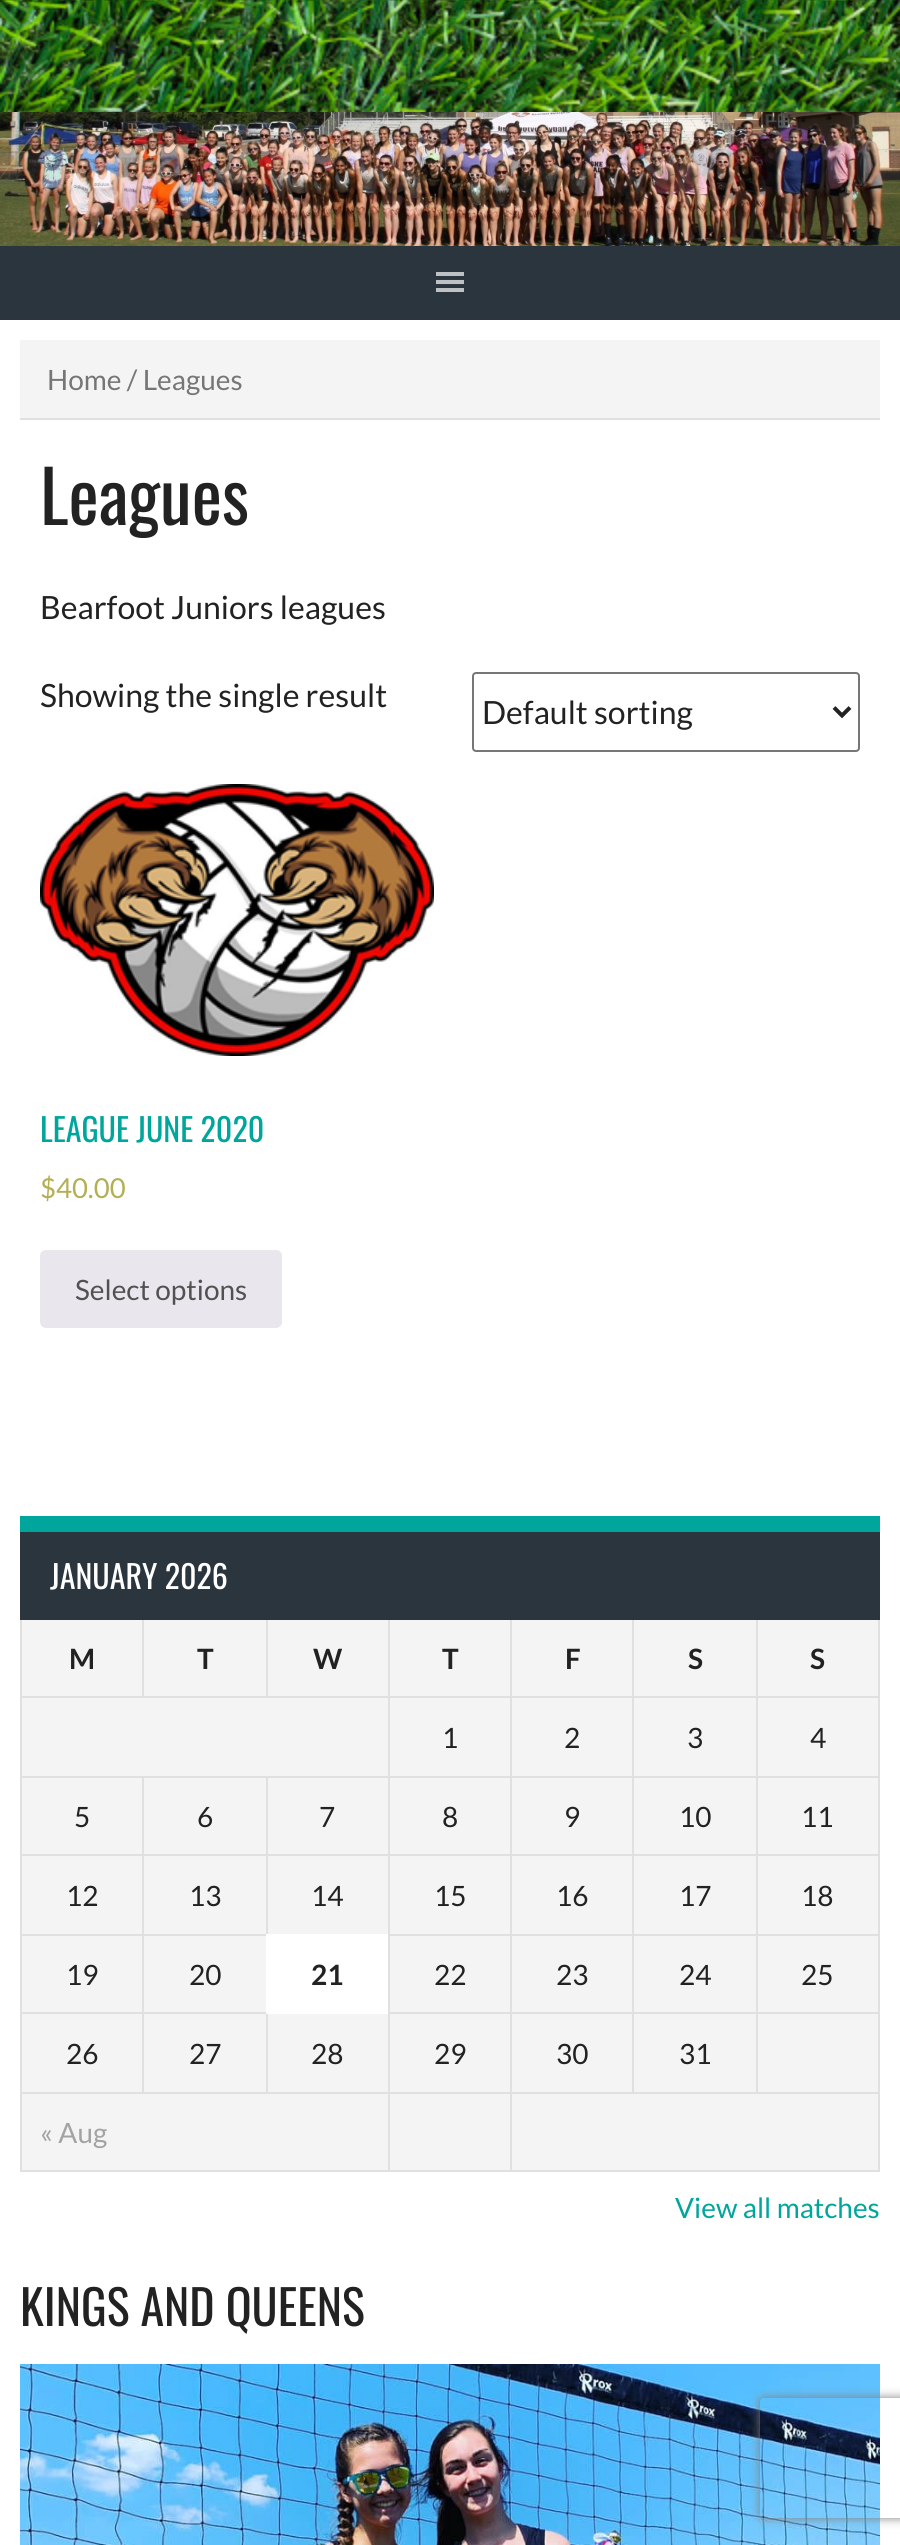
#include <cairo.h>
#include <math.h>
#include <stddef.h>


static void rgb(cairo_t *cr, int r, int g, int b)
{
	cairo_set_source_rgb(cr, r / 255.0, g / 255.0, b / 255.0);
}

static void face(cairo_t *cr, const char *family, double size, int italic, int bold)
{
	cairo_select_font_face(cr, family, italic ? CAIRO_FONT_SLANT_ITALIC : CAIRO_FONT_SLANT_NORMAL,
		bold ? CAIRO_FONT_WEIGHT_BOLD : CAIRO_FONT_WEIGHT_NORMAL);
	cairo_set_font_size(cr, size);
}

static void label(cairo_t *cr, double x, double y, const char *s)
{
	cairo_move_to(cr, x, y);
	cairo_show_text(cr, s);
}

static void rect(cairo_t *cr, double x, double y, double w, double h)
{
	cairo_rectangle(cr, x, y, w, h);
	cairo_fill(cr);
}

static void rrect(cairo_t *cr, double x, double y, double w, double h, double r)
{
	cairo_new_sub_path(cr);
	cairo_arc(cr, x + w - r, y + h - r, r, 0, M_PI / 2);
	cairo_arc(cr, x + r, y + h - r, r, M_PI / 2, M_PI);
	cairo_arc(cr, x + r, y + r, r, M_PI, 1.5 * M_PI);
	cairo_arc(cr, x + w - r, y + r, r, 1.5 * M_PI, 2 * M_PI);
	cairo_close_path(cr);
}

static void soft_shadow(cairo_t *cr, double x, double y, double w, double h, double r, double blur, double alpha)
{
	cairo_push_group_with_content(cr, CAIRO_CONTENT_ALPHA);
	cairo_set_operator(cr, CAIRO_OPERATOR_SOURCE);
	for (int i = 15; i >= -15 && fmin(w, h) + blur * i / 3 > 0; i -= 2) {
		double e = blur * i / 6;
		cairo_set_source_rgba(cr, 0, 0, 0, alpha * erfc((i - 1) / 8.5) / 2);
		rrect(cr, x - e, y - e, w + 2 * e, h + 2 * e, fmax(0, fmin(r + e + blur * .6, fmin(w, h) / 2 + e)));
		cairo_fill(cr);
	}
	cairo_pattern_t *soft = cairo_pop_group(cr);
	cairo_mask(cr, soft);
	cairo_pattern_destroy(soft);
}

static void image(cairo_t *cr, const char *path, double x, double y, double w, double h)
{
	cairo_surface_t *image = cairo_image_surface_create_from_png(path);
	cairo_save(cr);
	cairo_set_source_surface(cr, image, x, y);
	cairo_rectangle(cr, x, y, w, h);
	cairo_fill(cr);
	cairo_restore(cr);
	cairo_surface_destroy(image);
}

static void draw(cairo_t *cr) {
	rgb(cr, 255, 255, 255);
	cairo_paint(cr);
	image(cr, "image0.png", 0, 0, 900, 112);
	image(cr, "image1.png", 0, 112, 900, 134);
	rgb(cr, 43, 53, 62);
	rect(cr, 0, 246, 900, 74);
	image(cr, "image2.png", 436, 272, 28, 20);
	rgb(cr, 244, 244, 244);
	rect(cr, 20, 340, 860, 78);
	rgb(cr, 224, 224, 224);
	rect(cr, 20, 418, 860, 2);
	face(cr, "Lato", 28, 0, 0);
	rgb(cr, 118, 118, 118);
	label(cr, 47, 390, "Home / Leagues");
	face(cr, "Oswald", 72, 0, 0);
	rgb(cr, 34, 34, 34);
	label(cr, 40, 525, "Leagues");
	face(cr, "Lato", 32, 0, 0);
	label(cr, 40, 619, "Bearfoot Juniors leagues");
	label(cr, 40, 707, "Showing the single result");
	rrect(cr, 473, 673, 386, 78, 3);
	rgb(cr, 118, 118, 118);
	cairo_stroke(cr);
	cairo_new_path(cr);
	cairo_move_to(cr, 834, 707.5);
	cairo_line_to(cr, 842, 715.5);
	cairo_line_to(cr, 850, 707.5);
	rgb(cr, 34, 34, 34);
	cairo_set_line_width(cr, 4);
	cairo_stroke(cr);
	label(cr, 482, 724, "Default sorting");
	image(cr, "image3.png", 40, 784, 394, 272);
	face(cr, "Oswald", 32, 0, 0);
	rgb(cr, 0, 166, 156);
	label(cr, 40, 1142, "LEAGUE JUNE 2020");
	face(cr, "Lato", 27.5, 0, 0);
	rgb(cr, 179, 175, 84);
	label(cr, 40, 1198, "$40.00");
	rgb(cr, 233, 230, 237);
	rrect(cr, 40, 1250, 242, 78, 6);
	cairo_fill(cr);
	face(cr, "Lato", 28, 0, 0);
	rgb(cr, 81, 81, 81);
	label(cr, 75, 1300, "Select options");
	rgb(cr, 244, 244, 244);
	rect(cr, 22, 1620, 856, 550);
	rgb(cr, 224, 224, 224);
	rect(cr, 878, 1620, 2, 552);
	rect(cr, 20, 2170, 860, 2);
	rect(cr, 20, 1620, 2, 552);
	rect(cr, 756, 1696, 124, 2);
	rect(cr, 756, 1776, 124, 2);
	rect(cr, 756, 1854, 124, 2);
	rect(cr, 756, 1934, 124, 2);
	rect(cr, 756, 2012, 124, 2);
	rect(cr, 756, 2092, 124, 2);
	rect(cr, 756, 2012, 2, 82);
	rect(cr, 632, 2012, 126, 2);
	rect(cr, 756, 1934, 2, 80);
	rect(cr, 632, 1934, 126, 2);
	rect(cr, 756, 1854, 2, 82);
	rect(cr, 632, 1854, 126, 2);
	rect(cr, 756, 1776, 2, 80);
	rect(cr, 632, 1776, 126, 2);
	rect(cr, 756, 1696, 2, 82);
	rect(cr, 632, 1696, 126, 2);
	rect(cr, 632, 2092, 126, 2);
	rect(cr, 632, 2012, 2, 82);
	rect(cr, 510, 2012, 124, 2);
	rect(cr, 632, 1934, 2, 80);
	rect(cr, 510, 1934, 124, 2);
	rect(cr, 632, 1854, 2, 82);
	rect(cr, 510, 1854, 124, 2);
	rect(cr, 632, 1776, 2, 80);
	rect(cr, 510, 1776, 124, 2);
	rect(cr, 632, 1696, 2, 82);
	rect(cr, 510, 1696, 124, 2);
	rect(cr, 510, 2092, 124, 2);
	rect(cr, 510, 2012, 2, 82);
	rect(cr, 388, 2012, 124, 2);
	rect(cr, 510, 1934, 2, 80);
	rect(cr, 388, 1934, 124, 2);
	rect(cr, 510, 1854, 2, 82);
	rect(cr, 388, 1854, 124, 2);
	rect(cr, 510, 1776, 2, 80);
	rect(cr, 388, 1776, 124, 2);
	rect(cr, 510, 1696, 2, 82);
	rect(cr, 388, 1696, 124, 2);
	rect(cr, 388, 2092, 124, 2);
	rect(cr, 388, 2012, 2, 82);
	rect(cr, 388, 1934, 2, 80);
	rect(cr, 388, 1854, 2, 82);
	rect(cr, 266, 1854, 124, 2);
	rect(cr, 388, 1776, 2, 80);
	rect(cr, 266, 1776, 124, 2);
	rect(cr, 388, 1696, 2, 82);
	rect(cr, 20, 1696, 370, 2);
	rect(cr, 142, 1618, 2, 80);
	rect(cr, 266, 1618, 2, 80);
	rect(cr, 388, 1618, 2, 80);
	rect(cr, 510, 1618, 2, 80);
	rect(cr, 632, 1618, 2, 80);
	rect(cr, 756, 1618, 2, 80);
	rgb(cr, 43, 53, 62);
	rect(cr, 20, 1532, 860, 88);
	rgb(cr, 0, 166, 156);
	rect(cr, 20, 1516, 860, 16);
	face(cr, "Oswald", 32, 0, 0);
	rgb(cr, 255, 255, 255);
	label(cr, 50, 1589, "JANUARY 2026");
	face(cr, "Lato", 28, 0, 1);
	rgb(cr, 34, 34, 34);
	label(cr, 69, 1669, "M");
	label(cr, 197, 1669, "T");
	label(cr, 313, 1669, "W");
	label(cr, 442, 1669, "T");
	label(cr, 565, 1669, "F");
	label(cr, 688, 1669, "S");
	label(cr, 810, 1669, "S");
	face(cr, "Lato", 28, 0, 0);
	label(cr, 442, 1748, "1");
	label(cr, 564, 1748, "2");
	label(cr, 687, 1748, "3");
	label(cr, 810, 1748, "4");
	rgb(cr, 224, 224, 224);
	rect(cr, 142, 1934, 126, 2);
	rect(cr, 266, 1854, 2, 82);
	rect(cr, 142, 1854, 126, 2);
	rect(cr, 266, 1776, 2, 80);
	rect(cr, 142, 1776, 126, 2);
	rect(cr, 266, 2092, 124, 2);
	rect(cr, 266, 2012, 2, 82);
	rect(cr, 142, 2012, 126, 2);
	rect(cr, 142, 2092, 126, 2);
	rect(cr, 142, 2012, 2, 82);
	rect(cr, 20, 2012, 124, 2);
	rect(cr, 142, 1934, 2, 80);
	rect(cr, 20, 1934, 124, 2);
	rect(cr, 142, 1854, 2, 82);
	rect(cr, 20, 1854, 124, 2);
	rect(cr, 142, 1776, 2, 80);
	rect(cr, 20, 1776, 124, 2);
	rgb(cr, 34, 34, 34);
	label(cr, 74, 1827, "5");
	label(cr, 197, 1827, "6");
	label(cr, 319, 1827, "7");
	label(cr, 442, 1827, "8");
	label(cr, 564, 1827, "9");
	label(cr, 679, 1827, "10");
	label(cr, 801, 1827, "11");
	label(cr, 66, 1906, "12");
	label(cr, 189, 1906, "13");
	label(cr, 311, 1906, "14");
	label(cr, 434, 1906, "15");
	label(cr, 556, 1906, "16");
	label(cr, 679, 1906, "17");
	label(cr, 801, 1906, "18");
	label(cr, 66, 1985, "19");
	label(cr, 189, 1985, "20");
	rgb(cr, 255, 255, 255);
	rect(cr, 266, 1934, 122, 80);
	face(cr, "Lato", 28, 0, 1);
	rgb(cr, 34, 34, 34);
	label(cr, 311, 1985, "21");
	face(cr, "Lato", 28, 0, 0);
	label(cr, 434, 1985, "22");
	label(cr, 556, 1985, "23");
	label(cr, 679, 1985, "24");
	label(cr, 801, 1985, "25");
	rgb(cr, 224, 224, 224);
	rect(cr, 20, 2092, 124, 2);
	rgb(cr, 34, 34, 34);
	label(cr, 66, 2064, "26");
	label(cr, 189, 2064, "27");
	label(cr, 311, 2064, "28");
	label(cr, 434, 2064, "29");
	label(cr, 556, 2064, "30");
	label(cr, 679, 2064, "31");
	rgb(cr, 163, 163, 163);
	label(cr, 40, 2143, "« Aug");
	rgb(cr, 224, 224, 224);
	rect(cr, 388, 2092, 2, 80);
	rect(cr, 510, 2092, 2, 80);
	rgb(cr, 0, 166, 156);
	label(cr, 675, 2218, "View all matches");
	face(cr, "Oswald", 48, 0, 0);
	rgb(cr, 34, 34, 34);
	label(cr, 20, 2326, "KINGS AND QUEENS");
	image(cr, "image4.png", 20, 2364, 860, 181);
	cairo_save(cr);
	cairo_set_fill_rule(cr, CAIRO_FILL_RULE_EVEN_ODD);
	cairo_new_path(cr);
	cairo_move_to(cr, 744, 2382);
	cairo_line_to(cr, 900, 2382);
	cairo_line_to(cr, 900, 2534);
	cairo_line_to(cr, 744, 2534);
	cairo_close_path(cr);
	cairo_move_to(cr, 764, 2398);
	cairo_line_to(cr, 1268, 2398);
	cairo_curve_to(cr, 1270, 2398, 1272, 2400, 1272, 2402);
	cairo_line_to(cr, 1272, 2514);
	cairo_curve_to(cr, 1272, 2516, 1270, 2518, 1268, 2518);
	cairo_line_to(cr, 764, 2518);
	cairo_curve_to(cr, 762, 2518, 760, 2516, 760, 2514);
	cairo_line_to(cr, 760, 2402);
	cairo_curve_to(cr, 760, 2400, 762, 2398, 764, 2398);
	cairo_close_path(cr);
	cairo_clip(cr);
	rgb(cr, 128, 128, 128);
	soft_shadow(cr, 760, 2398, 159, 120, 4, 5, 1);
	cairo_restore(cr);
}

int main(void) {
	cairo_surface_t *surface = cairo_image_surface_create(CAIRO_FORMAT_RGB24, 900, 2545);
	cairo_t *cr = cairo_create(surface);
	cairo_font_options_t *options = cairo_font_options_create();
	cairo_font_options_set_hint_metrics(options, CAIRO_HINT_METRICS_OFF);
	cairo_font_options_set_hint_style(options, CAIRO_HINT_STYLE_NONE);
	cairo_set_font_options(cr, options);
	cairo_set_miter_limit(cr, 4);
	draw(cr);
	cairo_surface_write_to_png(surface, "render.png");
	cairo_font_options_destroy(options);
	cairo_destroy(cr);
	cairo_surface_destroy(surface);
	return 0;
}
